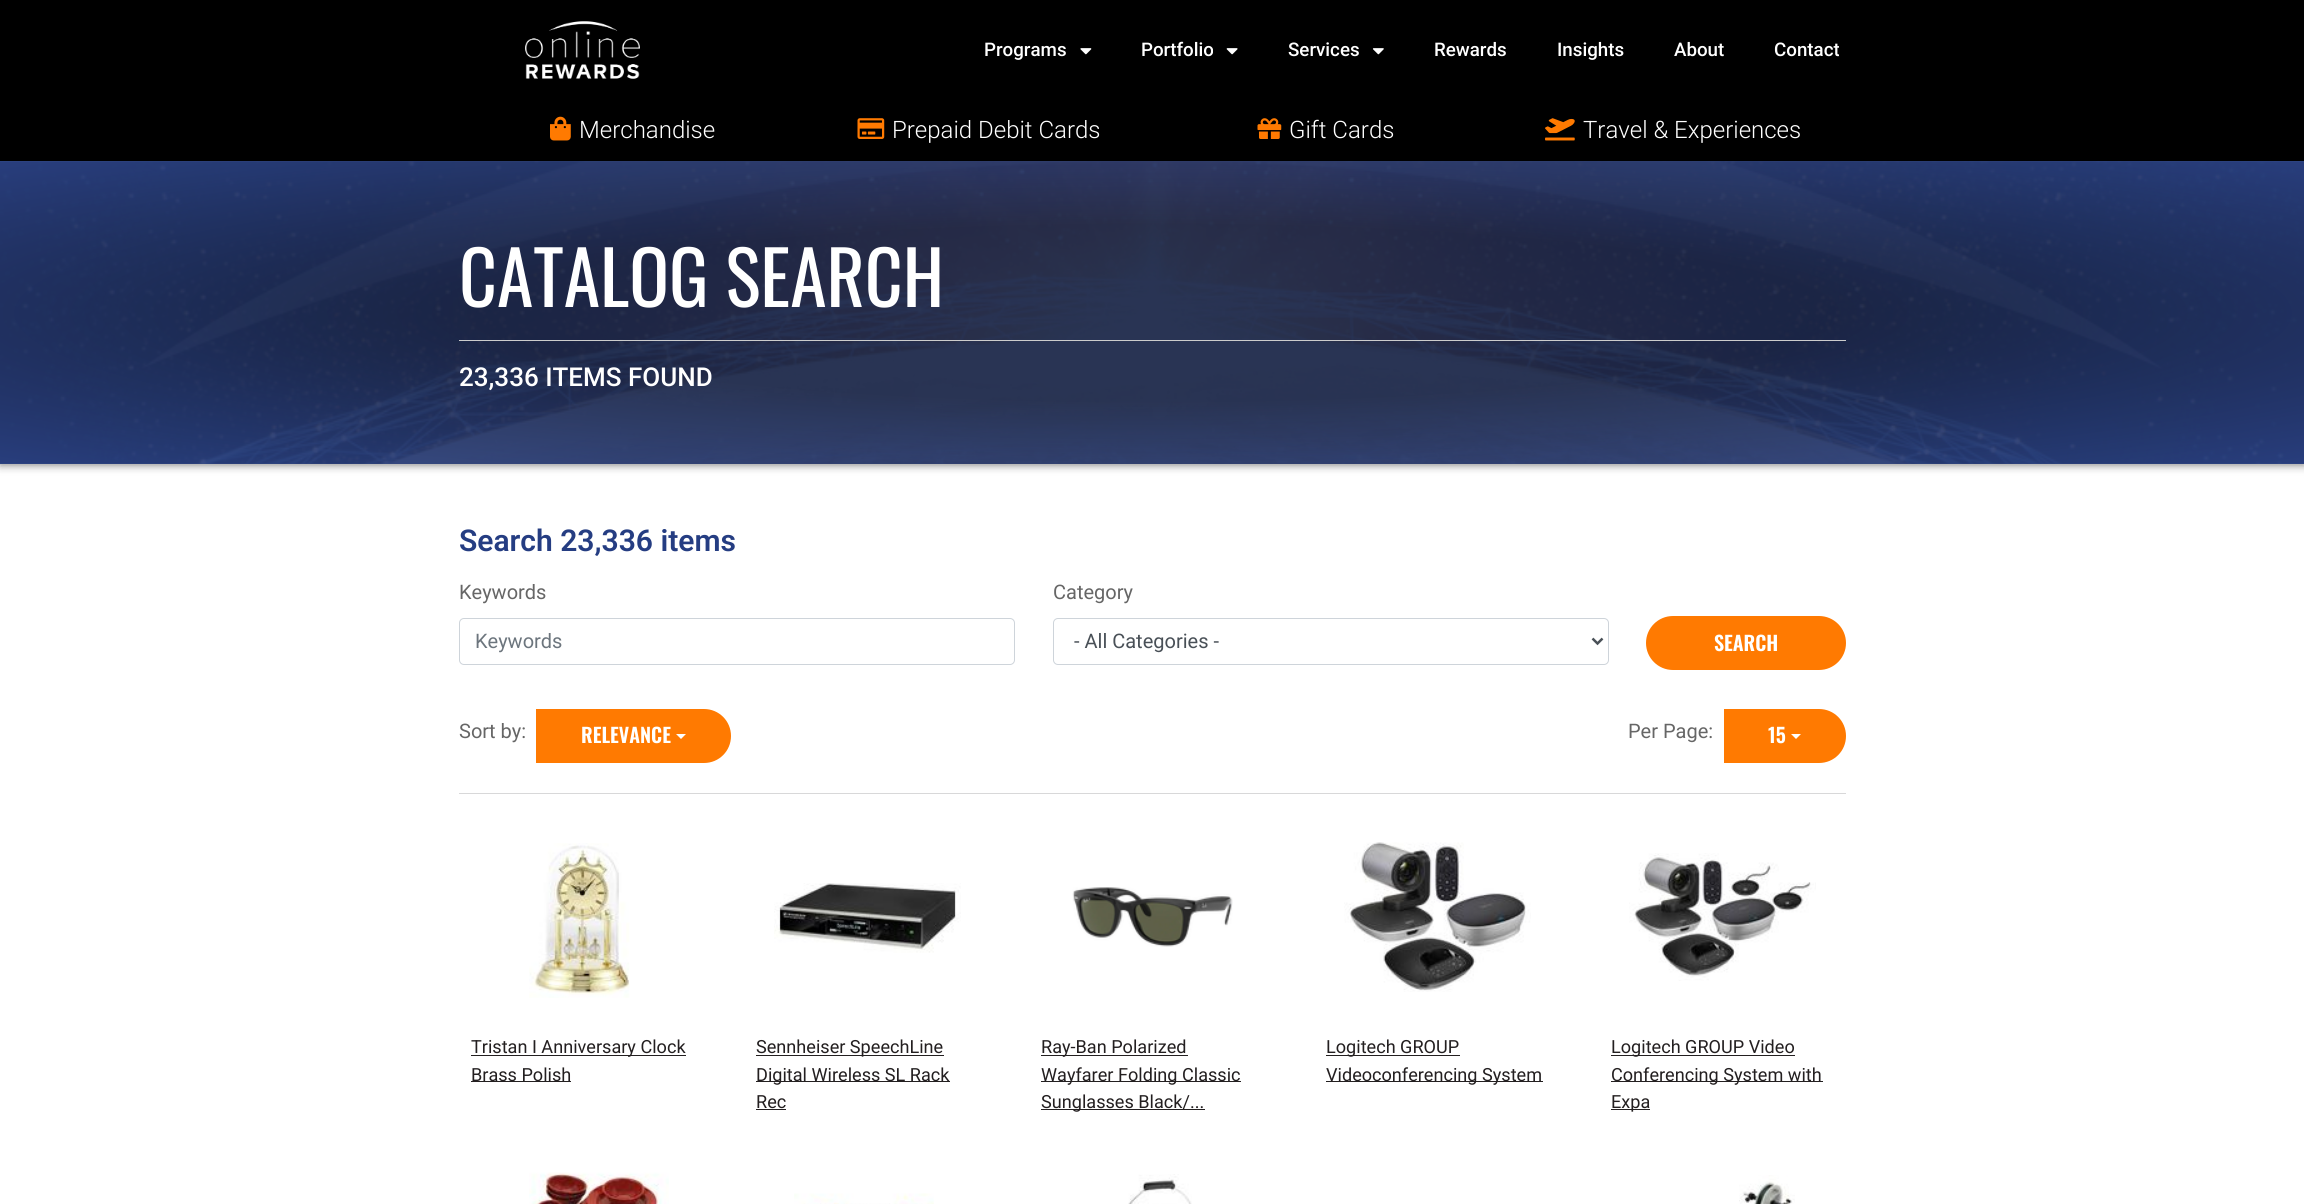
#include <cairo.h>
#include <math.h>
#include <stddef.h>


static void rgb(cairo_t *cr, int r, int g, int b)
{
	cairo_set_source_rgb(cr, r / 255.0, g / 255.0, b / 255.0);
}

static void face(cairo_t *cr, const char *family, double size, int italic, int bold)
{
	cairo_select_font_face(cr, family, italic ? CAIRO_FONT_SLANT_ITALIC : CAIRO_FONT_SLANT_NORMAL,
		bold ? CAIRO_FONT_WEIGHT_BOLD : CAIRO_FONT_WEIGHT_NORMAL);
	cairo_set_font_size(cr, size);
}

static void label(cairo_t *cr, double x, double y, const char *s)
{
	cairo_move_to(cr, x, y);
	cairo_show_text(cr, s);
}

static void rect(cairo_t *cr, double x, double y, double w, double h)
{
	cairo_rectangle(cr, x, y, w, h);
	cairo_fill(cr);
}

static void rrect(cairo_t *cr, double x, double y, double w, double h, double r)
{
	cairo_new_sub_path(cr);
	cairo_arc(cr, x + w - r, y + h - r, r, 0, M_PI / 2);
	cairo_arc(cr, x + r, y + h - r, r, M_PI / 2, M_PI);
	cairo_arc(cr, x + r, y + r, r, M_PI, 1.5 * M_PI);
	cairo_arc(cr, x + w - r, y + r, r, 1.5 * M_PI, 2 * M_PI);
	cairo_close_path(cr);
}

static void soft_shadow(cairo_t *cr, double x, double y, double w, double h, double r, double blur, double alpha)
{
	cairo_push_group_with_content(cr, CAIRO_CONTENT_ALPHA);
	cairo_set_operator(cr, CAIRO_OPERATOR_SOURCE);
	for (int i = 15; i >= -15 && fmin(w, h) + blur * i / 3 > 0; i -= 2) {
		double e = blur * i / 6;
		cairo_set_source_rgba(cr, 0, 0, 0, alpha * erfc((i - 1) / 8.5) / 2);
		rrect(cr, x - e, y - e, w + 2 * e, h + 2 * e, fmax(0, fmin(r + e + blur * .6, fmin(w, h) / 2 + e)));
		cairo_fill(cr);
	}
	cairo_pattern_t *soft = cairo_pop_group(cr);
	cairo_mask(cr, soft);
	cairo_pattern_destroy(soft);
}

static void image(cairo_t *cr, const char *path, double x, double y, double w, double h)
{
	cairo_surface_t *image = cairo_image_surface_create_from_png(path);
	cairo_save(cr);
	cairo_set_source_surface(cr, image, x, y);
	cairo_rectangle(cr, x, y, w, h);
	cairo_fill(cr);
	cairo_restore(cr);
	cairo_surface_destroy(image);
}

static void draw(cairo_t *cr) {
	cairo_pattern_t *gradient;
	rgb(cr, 255, 255, 255);
	cairo_paint(cr);
	cairo_save(cr);
	cairo_set_fill_rule(cr, CAIRO_FILL_RULE_EVEN_ODD);
	cairo_new_path(cr);
	cairo_move_to(cr, 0, 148);
	cairo_line_to(cr, 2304, 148);
	cairo_line_to(cr, 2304, 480);
	cairo_line_to(cr, 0, 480);
	cairo_close_path(cr);
	cairo_move_to(cr, 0, 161);
	cairo_line_to(cr, 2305, 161);
	cairo_line_to(cr, 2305, 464);
	cairo_line_to(cr, 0, 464);
	cairo_close_path(cr);
	cairo_clip(cr);
	rgb(cr, 0, 0, 0);
	soft_shadow(cr, 0, 163, 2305, 302, 0, 4.5, 0.5);
	cairo_restore(cr);
	rgb(cr, 0, 0, 0);
	rect(cr, 0, 0, 2304, 161);
	image(cr, "image0.png", 525, 21, 115, 58);
	face(cr, "Roboto Medium", 18.75, 0, 0);
	rgb(cr, 255, 255, 255);
	label(cr, 984, 56, "Programs");
	image(cr, "image1.png", 1080, 48, 12, 7);
	label(cr, 1141, 56, "Portfolio");
	image(cr, "image2.png", 1226, 48, 12, 7);
	label(cr, 1288, 56, "Services");
	image(cr, "image3.png", 1372, 48, 12, 7);
	label(cr, 1434, 56, "Rewards");
	label(cr, 1557, 56, "Insights");
	label(cr, 1674, 56, "About");
	label(cr, 1774, 56, "Contact");
	image(cr, "image4.png", 550, 116, 21, 25);
	face(cr, "Roboto Light", 24, 0, 0);
	label(cr, 579, 138, "Merchandise");
	image(cr, "image5.png", 857, 118, 28, 21);
	label(cr, 892, 138, "Prepaid Debit Cards");
	image(cr, "image6.png", 1257, 118, 25, 21);
	label(cr, 1289, 138, "Gift Cards");
	image(cr, "image7.png", 1545, 118, 30, 23);
	label(cr, 1583, 138, "Travel & Experiences");
	image(cr, "image8.png", 0, 161, 2304, 303);
	gradient = cairo_pattern_create_radial(0, 0, 0, 0, 0, 1);
	cairo_pattern_set_matrix(gradient, &(cairo_matrix_t){1.0 / 1630, 0, 0, 1.0 / 214, -1.0 * 1153 / 1630, -1.0 * 313 / 214});
	cairo_pattern_add_color_stop_rgba(gradient, 0.41, 0.071, 0.118, 0.255, 0.9);
	cairo_pattern_add_color_stop_rgba(gradient, 1, 0.145, 0.239, 0.51, 0.9);
	cairo_set_source(cr, gradient);
	cairo_pattern_destroy(gradient);
	rect(cr, 0, 161, 2304, 303);
	face(cr, "Oswald", 73.75, 0, 0);
	rgb(cr, 255, 255, 255);
	label(cr, 459, 307, "CATALOG SEARCH");
	rgb(cr, 204, 204, 204);
	rect(cr, 459, 340, 1387, 1);
	face(cr, "Roboto Medium", 26, 0, 0);
	rgb(cr, 255, 255, 255);
	label(cr, 459, 386, "23,336 ITEMS FOUND");
	face(cr, "Roboto SemiBold", 30, 0, 0);
	rgb(cr, 37, 61, 130);
	label(cr, 459, 551, "Search 23,336 items");
	face(cr, "Roboto", 20, 0, 0);
	rgb(cr, 102, 102, 102);
	label(cr, 459, 599, "Keywords");
	rrect(cr, 459.5, 618.5, 555, 46, 4.5);
	rgb(cr, 206, 212, 218);
	cairo_set_line_width(cr, 1);
	cairo_stroke(cr);
	rgb(cr, 108, 117, 125);
	label(cr, 475, 648, "Keywords");
	rgb(cr, 102, 102, 102);
	label(cr, 1053, 599, "Category");
	rrect(cr, 1053.5, 618.5, 555, 46, 4.5);
	rgb(cr, 206, 212, 218);
	cairo_stroke(cr);
	cairo_new_path(cr);
	cairo_move_to(cr, 1592.5, 638.5);
	cairo_line_to(cr, 1597.5, 643.5);
	cairo_line_to(cr, 1602.5, 638.5);
	rgb(cr, 73, 80, 87);
	cairo_set_line_width(cr, 2.5);
	cairo_stroke(cr);
	label(cr, 1074, 648, "- All Categories -");
	rgb(cr, 255, 122, 1);
	rrect(cr, 1646, 616, 200, 54, 27);
	cairo_fill(cr);
	face(cr, "Oswald SemiBold", 20, 0, 0);
	rgb(cr, 255, 255, 255);
	label(cr, 1714, 651, "SEARCH");
	rgb(cr, 216, 216, 217);
	rect(cr, 459, 793, 1387, 1);
	face(cr, "Roboto", 20, 0, 0);
	rgb(cr, 102, 102, 102);
	label(cr, 459, 738, "Sort by:");
	rgb(cr, 255, 122, 1);
	cairo_new_path(cr);
	cairo_move_to(cr, 536, 709);
	cairo_line_to(cr, 704, 709);
	cairo_curve_to(cr, 719, 709, 731, 721, 731, 736);
	cairo_curve_to(cr, 731, 751, 719, 763, 704, 763);
	cairo_line_to(cr, 536, 763);
	cairo_close_path(cr);
	cairo_fill(cr);
	face(cr, "Oswald SemiBold", 20, 0, 0);
	rgb(cr, 255, 255, 255);
	label(cr, 581, 743, "RELEVANCE");
	cairo_new_path(cr);
	cairo_move_to(cr, 676, 734);
	cairo_line_to(cr, 686, 734);
	cairo_line_to(cr, 681, 739);
	cairo_close_path(cr);
	cairo_fill(cr);
	face(cr, "Roboto", 20, 0, 0);
	rgb(cr, 102, 102, 102);
	label(cr, 1628, 738, "Per Page:");
	rgb(cr, 255, 122, 1);
	cairo_new_path(cr);
	cairo_move_to(cr, 1724, 709);
	cairo_line_to(cr, 1819, 709);
	cairo_curve_to(cr, 1834, 709, 1846, 721, 1846, 736);
	cairo_curve_to(cr, 1846, 751, 1834, 763, 1819, 763);
	cairo_line_to(cr, 1724, 763);
	cairo_close_path(cr);
	cairo_fill(cr);
	face(cr, "Oswald SemiBold", 20, 0, 0);
	rgb(cr, 255, 255, 255);
	label(cr, 1768, 743, "15");
	cairo_new_path(cr);
	cairo_move_to(cr, 1791, 734);
	cairo_line_to(cr, 1801, 734);
	cairo_line_to(cr, 1796, 739);
	cairo_close_path(cr);
	cairo_fill(cr);
	image(cr, "image9.png", 529, 843, 101, 155);
	rgb(cr, 35, 31, 32);
	rect(cr, 471, 1055, 215, 1);
	face(cr, "Roboto", 18.1, 0, 0);
	label(cr, 471, 1053, "Tristan I Anniversary Clock");
	rect(cr, 471, 1081, 100, 1);
	label(cr, 471, 1081, "Brass Polish");
	image(cr, "image10.png", 774, 883, 187, 70);
	rect(cr, 756, 1055, 188, 1);
	label(cr, 756, 1053, "Sennheiser SpeechLine");
	rect(cr, 756, 1081, 194, 1);
	label(cr, 756, 1081, "Digital Wireless SL Rack");
	label(cr, 756, 1108, "Rec");
	rect(cr, 756, 1109, 30, 1);
	image(cr, "image11.png", 1072, 887, 161, 60);
	rect(cr, 1041, 1055, 147, 1);
	label(cr, 1041, 1053, "Ray-Ban Polarized");
	rect(cr, 1041, 1081, 200, 1);
	label(cr, 1041, 1081, "Wayfarer Folding Classic");
	rect(cr, 1041, 1109, 164, 1);
	label(cr, 1041, 1108, "Sunglasses Black/...");
	image(cr, "image12.png", 1344, 842, 187, 150);
	rect(cr, 1326, 1055, 134, 1);
	label(cr, 1326, 1053, "Logitech GROUP");
	rect(cr, 1326, 1081, 217, 1);
	label(cr, 1326, 1081, "Videoconferencing System");
	image(cr, "image13.png", 1629, 853, 187, 128);
	rect(cr, 1611, 1055, 184, 1);
	label(cr, 1611, 1053, "Logitech GROUP Video");
	rect(cr, 1611, 1081, 212, 1);
	label(cr, 1611, 1081, "Conferencing System with");
	rect(cr, 1611, 1109, 39, 1);
	label(cr, 1611, 1108, "Expa");
	image(cr, "image14.png", 529, 1172, 140, 32);
	image(cr, "image15.png", 794, 1193, 140, 11);
	image(cr, "image16.png", 1128, 1174, 64, 30);
	image(cr, "image17.png", 1739, 1175, 56, 29);
}

int main(void) {
	cairo_surface_t *surface = cairo_image_surface_create(CAIRO_FORMAT_RGB24, 2304, 1204);
	cairo_t *cr = cairo_create(surface);
	cairo_font_options_t *options = cairo_font_options_create();
	cairo_font_options_set_hint_metrics(options, CAIRO_HINT_METRICS_OFF);
	cairo_font_options_set_hint_style(options, CAIRO_HINT_STYLE_NONE);
	cairo_set_font_options(cr, options);
	cairo_set_miter_limit(cr, 4);
	draw(cr);
	cairo_surface_write_to_png(surface, "render.png");
	cairo_font_options_destroy(options);
	cairo_destroy(cr);
	cairo_surface_destroy(surface);
	return 0;
}
